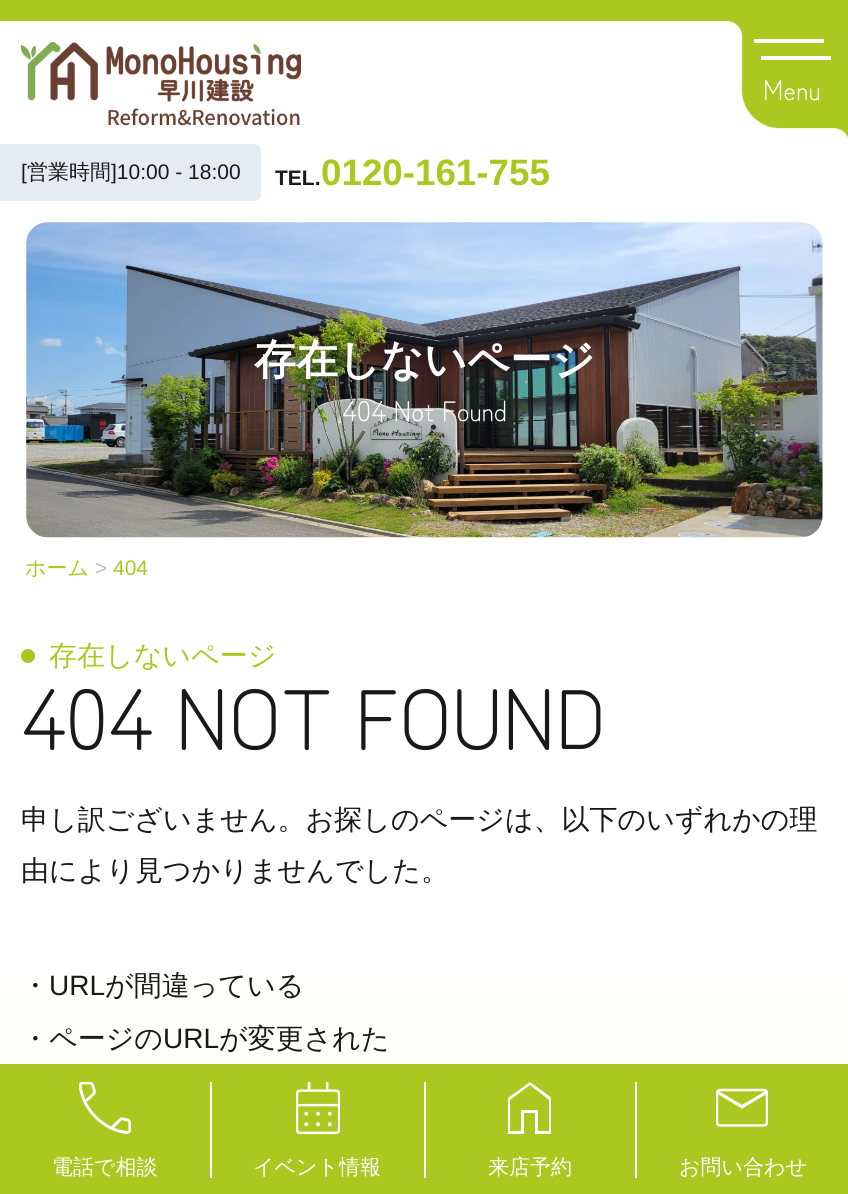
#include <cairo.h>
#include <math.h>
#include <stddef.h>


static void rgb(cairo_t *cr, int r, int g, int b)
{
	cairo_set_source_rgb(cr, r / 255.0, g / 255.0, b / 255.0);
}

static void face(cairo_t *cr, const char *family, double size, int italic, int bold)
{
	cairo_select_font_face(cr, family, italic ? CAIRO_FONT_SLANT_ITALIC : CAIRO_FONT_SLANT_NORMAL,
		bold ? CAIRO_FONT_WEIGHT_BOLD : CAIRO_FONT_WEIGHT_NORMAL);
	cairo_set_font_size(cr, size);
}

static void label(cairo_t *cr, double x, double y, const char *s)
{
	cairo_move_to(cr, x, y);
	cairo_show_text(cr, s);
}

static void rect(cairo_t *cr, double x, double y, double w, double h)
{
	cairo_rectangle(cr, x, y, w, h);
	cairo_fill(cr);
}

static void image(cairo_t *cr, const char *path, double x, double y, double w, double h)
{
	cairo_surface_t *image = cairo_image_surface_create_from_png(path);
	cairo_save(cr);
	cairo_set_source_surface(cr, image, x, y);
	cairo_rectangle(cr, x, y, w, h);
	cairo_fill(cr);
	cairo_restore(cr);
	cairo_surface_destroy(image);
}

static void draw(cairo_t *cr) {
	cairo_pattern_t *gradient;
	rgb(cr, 171, 200, 33);
	cairo_paint(cr);
	rgb(cr, 255, 255, 255);
	rect(cr, 0, 21, 848, 579);
	image(cr, "image0.png", 21, 42, 280, 84);
	image(cr, "image1.png", 727, 21, 121, 117);
	rect(cr, 754, 39, 70, 4);
	rect(cr, 761, 56, 70, 4);
	face(cr, "Zen Kurenaido", 28, 0, 0);
	label(cr, 763, 100, "Menu");
	rgb(cr, 230, 235, 241);
	cairo_new_path(cr);
	cairo_move_to(cr, 0, 144);
	cairo_line_to(cr, 254, 144);
	cairo_curve_to(cr, 258, 144, 261, 147, 261, 151);
	cairo_line_to(cr, 261, 194);
	cairo_curve_to(cr, 261, 198, 258, 201, 254, 201);
	cairo_line_to(cr, 0, 201);
	cairo_close_path(cr);
	cairo_fill(cr);
	face(cr, "Liberation Sans", 21, 0, 0);
	rgb(cr, 25, 25, 25);
	label(cr, 21, 179, "[");
	face(cr, "WenQuanYi Zen Hei Medium", 21, 0, 0);
	label(cr, 27, 179, "営業時間");
	face(cr, "Liberation Sans", 21, 0, 0);
	label(cr, 111, 179, "]10:00 - 18:00");
	face(cr, "Liberation Sans", 21, 0, 1);
	label(cr, 275, 185, "TEL.");
	face(cr, "Liberation Sans", 36.75, 0, 1);
	rgb(cr, 171, 200, 33);
	label(cr, 321, 185, "0120-161-755");
	image(cr, "image2.png", 26, 222, 797, 316);
	face(cr, "WenQuanYi Zen Hei", 42, 0, 1);
	rgb(cr, 255, 255, 255);
	label(cr, 254, 374, "存在しないページ");
	face(cr, "Zen Kurenaido", 28, 0, 0);
	label(cr, 342, 421, "404 Not Found");
	face(cr, "WenQuanYi Zen Hei Medium", 21, 0, 0);
	rgb(cr, 171, 200, 33);
	label(cr, 25, 575, "ホーム");
	face(cr, "Liberation Sans", 21, 0, 0);
	rgb(cr, 187, 187, 187);
	label(cr, 95, 575, ">");
	rgb(cr, 171, 200, 33);
	label(cr, 113, 575, "404");
	gradient = cairo_pattern_create_linear(424, 600, 424, 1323);
	cairo_pattern_add_color_stop_rgba(gradient, 0.5, 1, 1, 1, 1);
	cairo_pattern_add_color_stop_rgba(gradient, 1, 0.976, 0.984, 0.933, 1);
	cairo_set_source(cr, gradient);
	cairo_pattern_destroy(gradient);
	rect(cr, 0, 600, 848, 464);
	rgb(cr, 171, 200, 33);
	cairo_new_path(cr);
	cairo_arc(cr, 28, 656, 7, 0, 2 * M_PI);
	cairo_fill(cr);
	face(cr, "WenQuanYi Zen Hei Medium", 28, 0, 0);
	label(cr, 49, 665, "存在しないページ");
	face(cr, "Zen Kurenaido", 84, 0, 0);
	rgb(cr, 25, 25, 25);
	label(cr, 21, 749, "404 NOT FOUND");
	face(cr, "WenQuanYi Zen Hei Medium", 28, 0, 0);
	label(cr, 21, 829, "申し訳ございません。お探しのページは、以下のいずれかの理");
	label(cr, 21, 880, "由により見つかりませんでした。");
	label(cr, 21, 995, "・");
	face(cr, "Liberation Sans", 28, 0, 0);
	label(cr, 49, 995, "URL");
	face(cr, "WenQuanYi Zen Hei Medium", 28, 0, 0);
	label(cr, 105, 995, "が間違っている");
	label(cr, 21, 1048, "・ページの");
	face(cr, "Liberation Sans", 28, 0, 0);
	label(cr, 163, 1048, "URL");
	face(cr, "WenQuanYi Zen Hei Medium", 28, 0, 0);
	label(cr, 219, 1048, "が変更された");
	rgb(cr, 255, 255, 255);
	rect(cr, 210, 1082, 2, 96);
	image(cr, "image3.png", 79, 1082, 52, 52);
	face(cr, "WenQuanYi Zen Hei Medium", 21, 0, 0);
	label(cr, 52, 1174, "電話で相談");
	rect(cr, 424, 1082, 2, 96);
	image(cr, "image4.png", 296, 1082, 44, 52);
	label(cr, 253, 1174, "イベント情報");
	rect(cr, 635, 1082, 2, 96);
	cairo_save(cr);
	cairo_rectangle(cr, 508, 1082, 43, 52);
	cairo_clip(cr);
	cairo_new_path(cr);
	cairo_move_to(cr, 510, 1131);
	cairo_line_to(cr, 521, 1131);
	cairo_line_to(cr, 521, 1110);
	cairo_line_to(cr, 538, 1110);
	cairo_line_to(cr, 538, 1131);
	cairo_line_to(cr, 549, 1131);
	cairo_line_to(cr, 549, 1100);
	cairo_line_to(cr, 530, 1085);
	cairo_line_to(cr, 510, 1100);
	cairo_close_path(cr);
	cairo_move_to(cr, 508, 1134);
	cairo_line_to(cr, 508, 1098);
	cairo_line_to(cr, 530, 1082);
	cairo_line_to(cr, 552, 1098);
	cairo_line_to(cr, 552, 1134);
	cairo_line_to(cr, 535, 1134);
	cairo_line_to(cr, 535, 1113);
	cairo_line_to(cr, 524, 1113);
	cairo_line_to(cr, 524, 1134);
	cairo_close_path(cr);
	cairo_move_to(cr, 530, 1108);
	cairo_close_path(cr);
	cairo_fill(cr);
	cairo_restore(cr);
	label(cr, 488, 1174, "来店予約");
	image(cr, "image5.png", 716, 1088, 52, 39);
	label(cr, 679, 1174, "お問い合わせ");
}

int main(void) {
	cairo_surface_t *surface = cairo_image_surface_create(CAIRO_FORMAT_RGB24, 848, 1194);
	cairo_t *cr = cairo_create(surface);
	cairo_font_options_t *options = cairo_font_options_create();
	cairo_font_options_set_hint_metrics(options, CAIRO_HINT_METRICS_OFF);
	cairo_font_options_set_hint_style(options, CAIRO_HINT_STYLE_NONE);
	cairo_set_font_options(cr, options);
	cairo_set_miter_limit(cr, 4);
	draw(cr);
	cairo_surface_write_to_png(surface, "render.png");
	cairo_font_options_destroy(options);
	cairo_destroy(cr);
	cairo_surface_destroy(surface);
	return 0;
}
